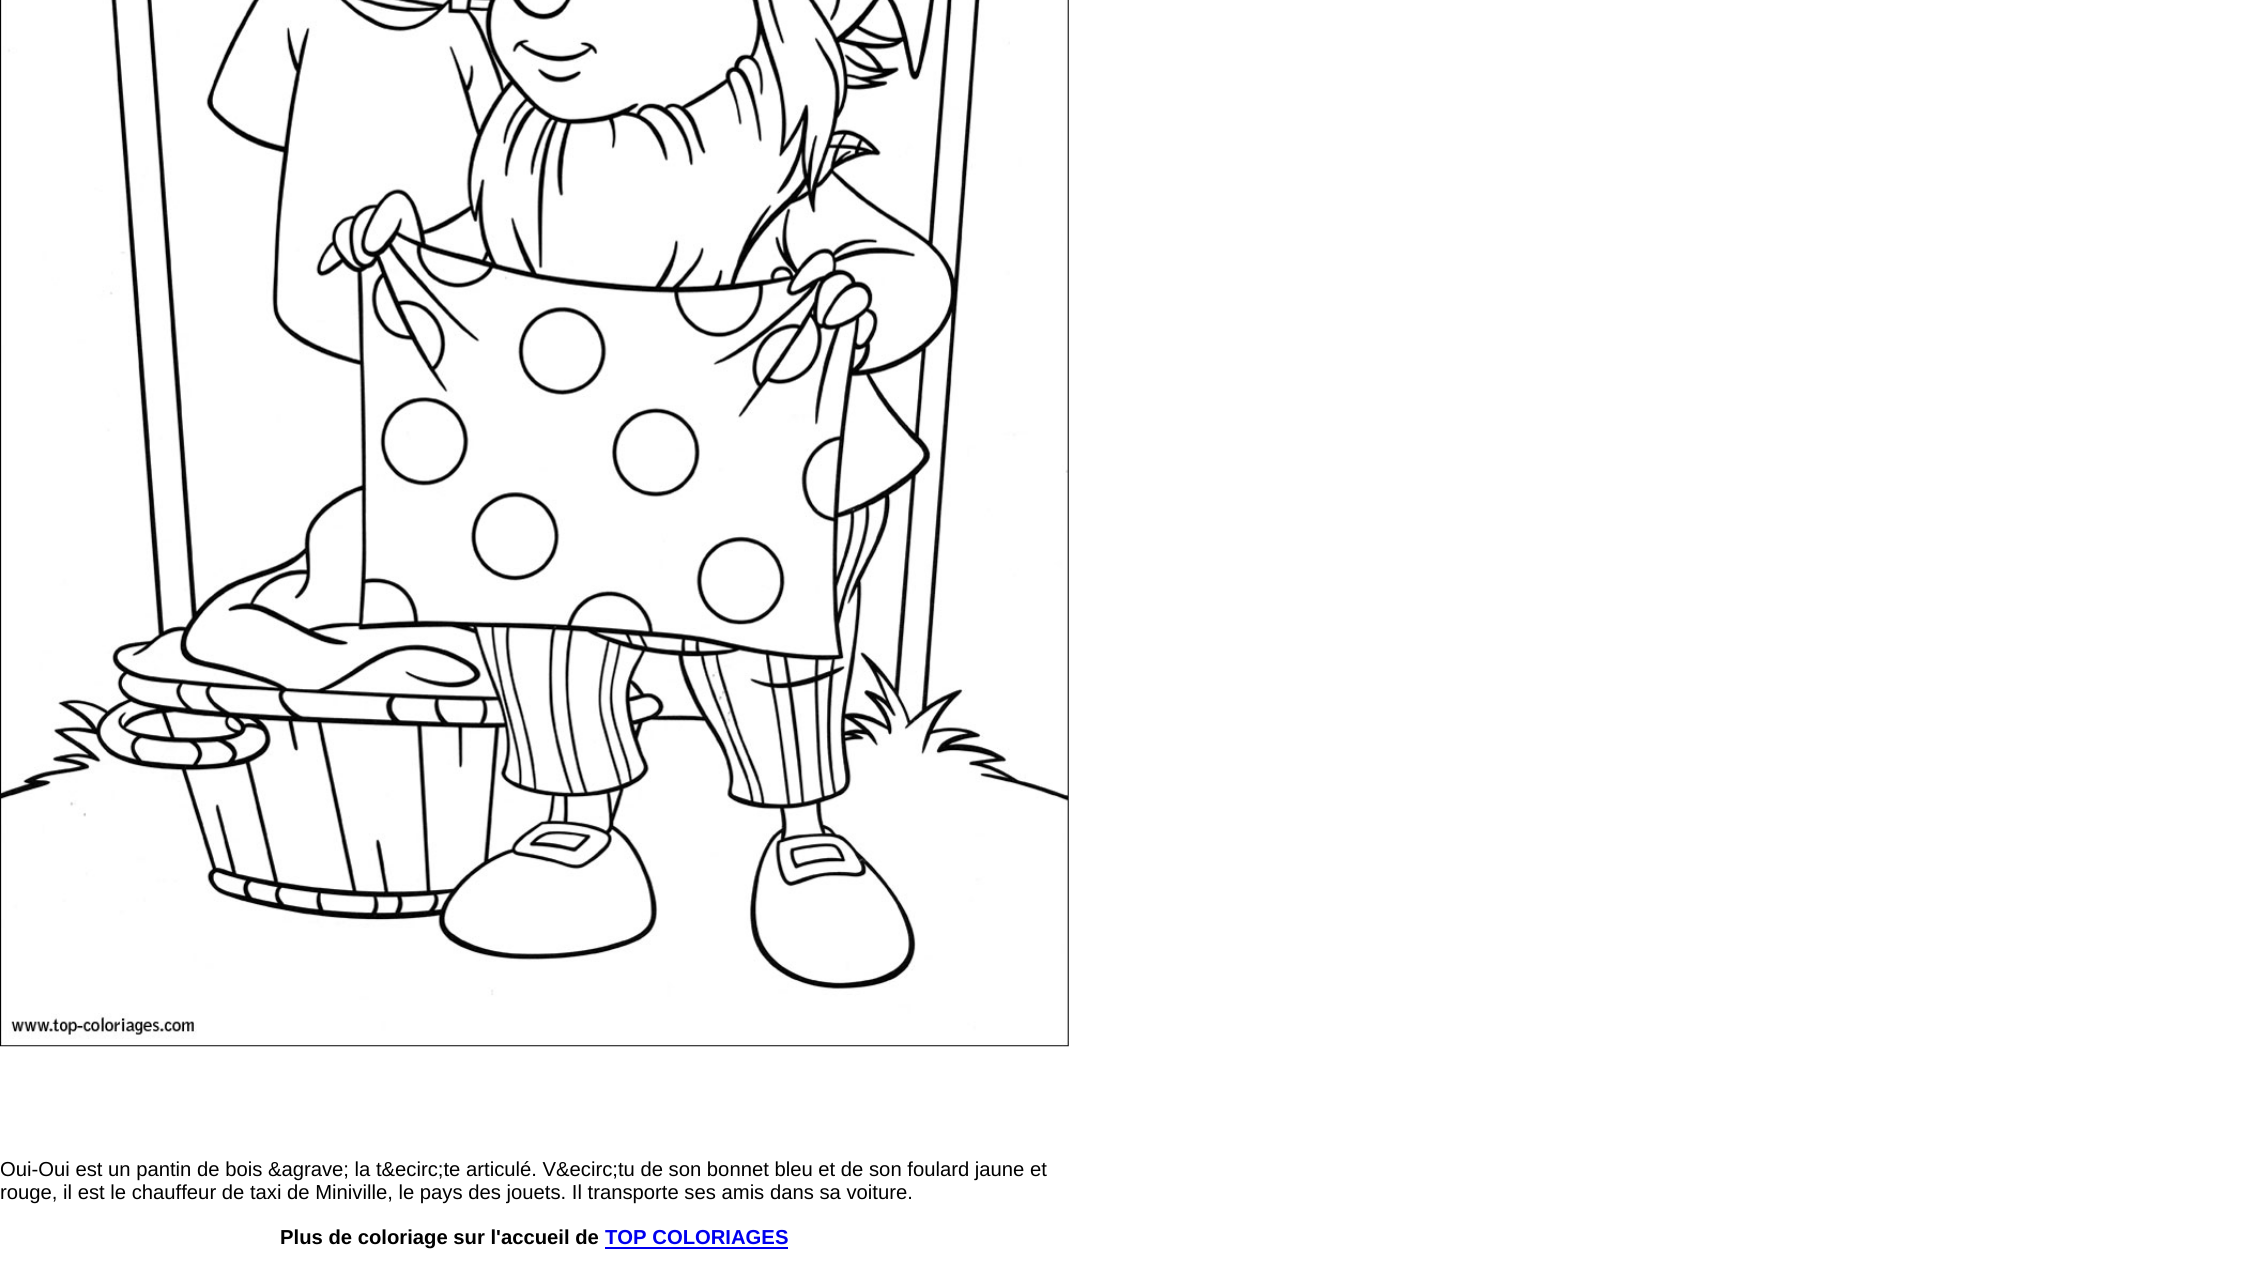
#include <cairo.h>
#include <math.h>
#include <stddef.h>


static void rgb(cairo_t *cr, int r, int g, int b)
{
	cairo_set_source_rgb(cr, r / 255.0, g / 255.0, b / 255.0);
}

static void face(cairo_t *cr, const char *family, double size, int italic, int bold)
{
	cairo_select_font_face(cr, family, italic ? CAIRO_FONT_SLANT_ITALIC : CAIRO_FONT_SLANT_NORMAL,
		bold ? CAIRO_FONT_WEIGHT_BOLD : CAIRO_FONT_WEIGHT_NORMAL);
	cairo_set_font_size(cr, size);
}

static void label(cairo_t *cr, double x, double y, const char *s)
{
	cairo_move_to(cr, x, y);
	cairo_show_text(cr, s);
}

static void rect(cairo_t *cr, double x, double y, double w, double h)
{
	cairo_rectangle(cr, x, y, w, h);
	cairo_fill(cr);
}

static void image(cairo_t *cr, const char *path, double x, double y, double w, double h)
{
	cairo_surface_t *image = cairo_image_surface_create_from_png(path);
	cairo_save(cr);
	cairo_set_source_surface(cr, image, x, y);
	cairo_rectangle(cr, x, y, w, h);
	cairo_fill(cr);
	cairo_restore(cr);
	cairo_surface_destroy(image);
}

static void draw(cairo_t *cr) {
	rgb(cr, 255, 255, 255);
	cairo_paint(cr);
	image(cr, "image0.png", 0, 0, 1069, 1047);
	face(cr, "Liberation Sans", 20.25, 0, 0);
	rgb(cr, 0, 0, 0);
	label(cr, 0, 1176, "Oui-Oui est un pantin de bois &agrave; la t&ecirc;te articulé. V&ecirc;tu de son bonnet bleu et de son foulard jaune et");
	label(cr, 0, 1199, "rouge, il est le chauffeur de taxi de Miniville, le pays des jouets. Il transporte ses amis dans sa voiture.");
	face(cr, "Liberation Sans", 20.25, 0, 1);
	label(cr, 280, 1244, "Plus de coloriage sur l'accueil de");
	rgb(cr, 0, 0, 238);
	label(cr, 605, 1244, "TOP COLORIAGES");
	rect(cr, 605, 1247, 183, 2);
}

int main(void) {
	cairo_surface_t *surface = cairo_image_surface_create(CAIRO_FORMAT_RGB24, 2251, 1285);
	cairo_t *cr = cairo_create(surface);
	cairo_font_options_t *options = cairo_font_options_create();
	cairo_font_options_set_hint_metrics(options, CAIRO_HINT_METRICS_OFF);
	cairo_font_options_set_hint_style(options, CAIRO_HINT_STYLE_NONE);
	cairo_set_font_options(cr, options);
	cairo_set_miter_limit(cr, 4);
	draw(cr);
	cairo_surface_write_to_png(surface, "render.png");
	cairo_font_options_destroy(options);
	cairo_destroy(cr);
	cairo_surface_destroy(surface);
	return 0;
}
